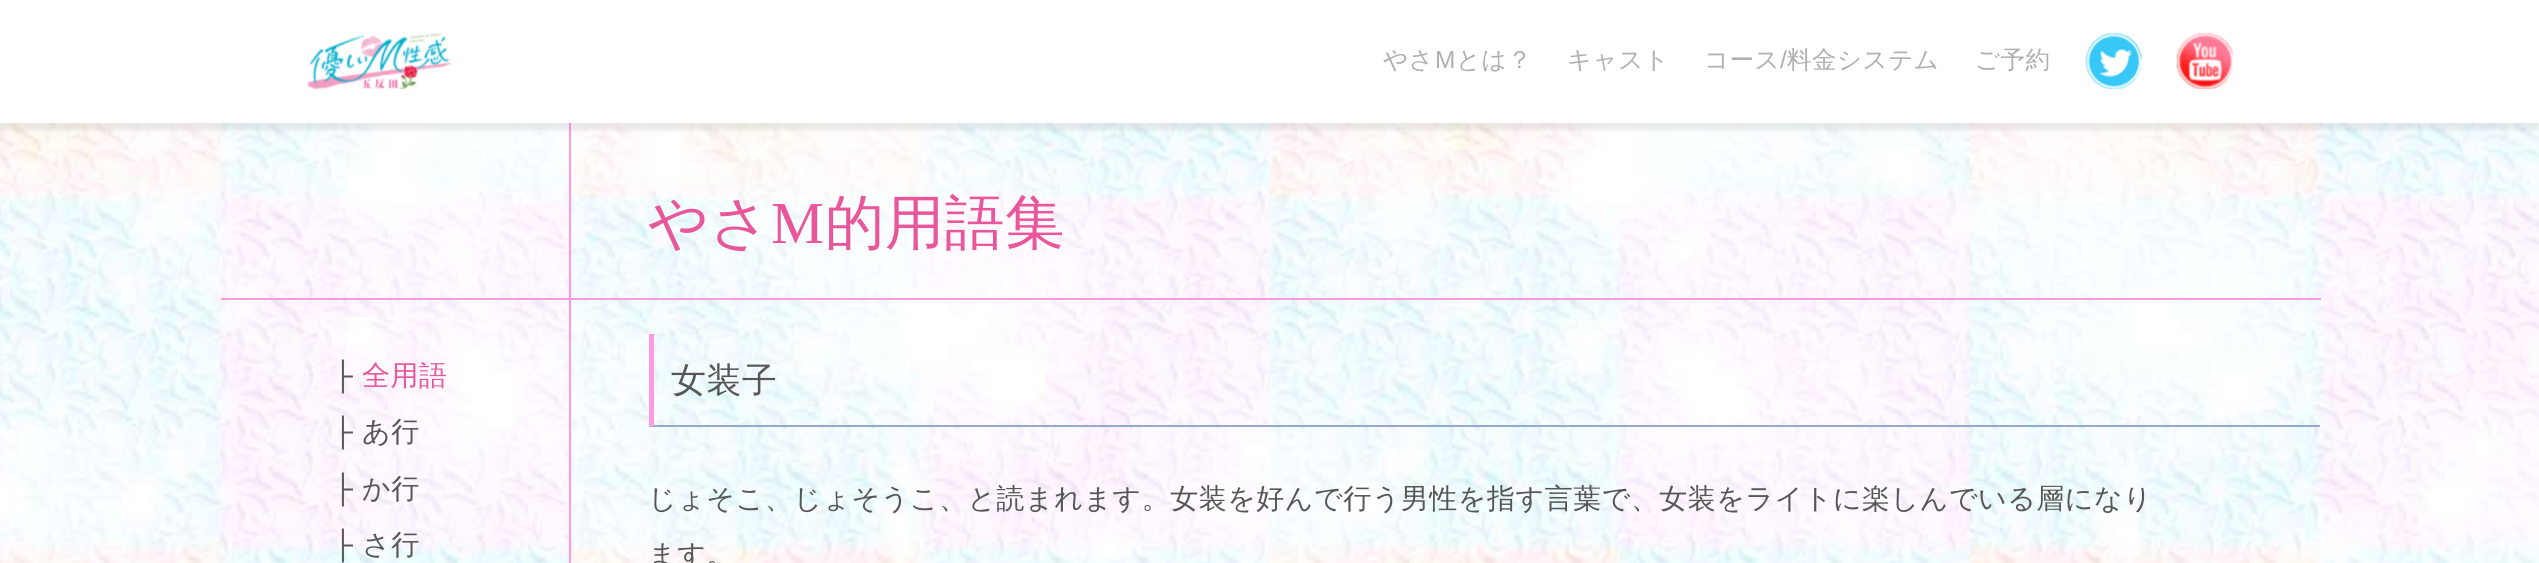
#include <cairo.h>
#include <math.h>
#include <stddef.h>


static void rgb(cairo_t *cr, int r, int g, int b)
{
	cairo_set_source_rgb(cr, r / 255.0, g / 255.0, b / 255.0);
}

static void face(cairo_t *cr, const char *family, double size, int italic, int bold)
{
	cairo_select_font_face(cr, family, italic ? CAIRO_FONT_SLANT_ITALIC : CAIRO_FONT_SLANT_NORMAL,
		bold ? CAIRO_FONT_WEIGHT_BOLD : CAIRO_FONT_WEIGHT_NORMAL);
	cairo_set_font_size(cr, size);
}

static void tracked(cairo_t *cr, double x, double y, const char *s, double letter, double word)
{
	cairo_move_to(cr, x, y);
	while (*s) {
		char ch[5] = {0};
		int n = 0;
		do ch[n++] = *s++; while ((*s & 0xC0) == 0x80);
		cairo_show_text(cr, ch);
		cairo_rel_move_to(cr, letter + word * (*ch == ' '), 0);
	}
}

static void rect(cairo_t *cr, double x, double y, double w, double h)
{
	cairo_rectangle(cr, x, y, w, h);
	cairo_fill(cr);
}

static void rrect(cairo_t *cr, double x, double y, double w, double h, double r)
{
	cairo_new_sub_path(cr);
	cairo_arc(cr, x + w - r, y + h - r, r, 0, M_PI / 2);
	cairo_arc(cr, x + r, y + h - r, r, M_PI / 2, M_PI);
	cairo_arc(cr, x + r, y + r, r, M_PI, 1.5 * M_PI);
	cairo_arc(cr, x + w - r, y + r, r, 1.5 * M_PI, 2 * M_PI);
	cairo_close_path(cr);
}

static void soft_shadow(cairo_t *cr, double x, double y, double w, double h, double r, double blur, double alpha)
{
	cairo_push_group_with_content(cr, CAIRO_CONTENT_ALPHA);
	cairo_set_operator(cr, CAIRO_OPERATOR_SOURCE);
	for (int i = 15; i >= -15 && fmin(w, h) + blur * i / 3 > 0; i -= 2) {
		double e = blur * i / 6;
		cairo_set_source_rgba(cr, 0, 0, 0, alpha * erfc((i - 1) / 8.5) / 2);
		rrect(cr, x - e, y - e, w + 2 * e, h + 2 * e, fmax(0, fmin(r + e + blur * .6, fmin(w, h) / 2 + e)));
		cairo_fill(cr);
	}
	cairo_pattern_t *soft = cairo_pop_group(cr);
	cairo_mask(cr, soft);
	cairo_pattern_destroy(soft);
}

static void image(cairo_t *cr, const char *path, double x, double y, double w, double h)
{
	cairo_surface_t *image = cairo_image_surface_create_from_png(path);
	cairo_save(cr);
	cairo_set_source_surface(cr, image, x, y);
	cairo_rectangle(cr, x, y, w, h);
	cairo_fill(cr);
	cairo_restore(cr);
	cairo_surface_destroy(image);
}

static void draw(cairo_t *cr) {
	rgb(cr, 255, 255, 255);
	cairo_paint(cr);
	image(cr, "image3.png", 0, 123, 2539, 440);
	rgb(cr, 255, 154, 225);
	rect(cr, 221, 298, 2100, 2);
	rect(cr, 569, 123, 2, 440);
	rgb(cr, 57, 57, 57);
	soft_shadow(cr, 0, 7, 2539, 123, 0, 2, 0.1);
	rgb(cr, 255, 255, 255);
	rect(cr, 0, 5, 2539, 118);
	image(cr, "image0.png", 307, 32, 145, 57);
	face(cr, "WenQuanYi Zen Hei Medium", 24.5, 0, 0);
	rgb(cr, 175, 175, 175);
	tracked(cr, 1383, 68, "やさ", 0.5, 0);
	face(cr, "Liberation Sans", 24.5, 0, 0);
	tracked(cr, 1435, 68, "M", 0.5, 0);
	face(cr, "WenQuanYi Zen Hei Medium", 24.5, 0, 0);
	tracked(cr, 1456, 68, "とは？", 0.5, 0);
	tracked(cr, 1567, 68, "キャスト", 0.5, 0);
	tracked(cr, 1704, 68, "コース", 0.5, 0);
	face(cr, "Liberation Sans", 24.5, 0, 0);
	tracked(cr, 1780, 68, "/", 0.5, 0);
	face(cr, "WenQuanYi Zen Hei Medium", 24.5, 0, 0);
	tracked(cr, 1787, 68, "料金システム", 0.5, 0);
	tracked(cr, 1975, 68, "ご予約", 0.5, 0);
	image(cr, "image1.png", 2085, 32, 58, 57);
	image(cr, "image2.png", 2176, 32, 57, 57);
	face(cr, "WenQuanYi Zen Hei Medium", 59.5, 0, 0);
	rgb(cr, 233, 87, 155);
	tracked(cr, 648, 243, "やさ", 0.5, 0);
	face(cr, "Liberation Serif", 59.5, 0, 0);
	tracked(cr, 771, 243, "M", 0.5, 0);
	face(cr, "WenQuanYi Zen Hei Medium", 59.5, 0, 0);
	tracked(cr, 825, 243, "的用語集", 0.5, 0);
	face(cr, "Liberation Sans", 28, 0, 0);
	rgb(cr, 86, 86, 86);
	tracked(cr, 333, 385, "├", 0.5, 0);
	face(cr, "WenQuanYi Zen Hei Medium", 28, 0, 0);
	rgb(cr, 233, 87, 155);
	tracked(cr, 362, 385, "全用語", 0.5, 0);
	face(cr, "Liberation Sans", 28, 0, 0);
	rgb(cr, 86, 86, 86);
	tracked(cr, 333, 441, "├", 0.5, 0);
	face(cr, "WenQuanYi Zen Hei Medium", 28, 0, 0);
	tracked(cr, 362, 441, "あ行", 0.5, 0);
	face(cr, "Liberation Sans", 28, 0, 0);
	tracked(cr, 333, 498, "├", 0.5, 0);
	face(cr, "WenQuanYi Zen Hei Medium", 28, 0, 0);
	tracked(cr, 362, 498, "か行", 0.5, 0);
	face(cr, "Liberation Sans", 28, 0, 0);
	tracked(cr, 333, 554, "├", 0.5, 0);
	face(cr, "WenQuanYi Zen Hei Medium", 28, 0, 0);
	tracked(cr, 362, 554, "さ行", 0.5, 0);
	rgb(cr, 151, 169, 208);
	cairo_new_path(cr);
	cairo_move_to(cr, 2320, 427);
	cairo_line_to(cr, 649, 427);
	cairo_line_to(cr, 654, 425);
	cairo_line_to(cr, 2320, 425);
	cairo_close_path(cr);
	cairo_fill(cr);
	rgb(cr, 255, 154, 225);
	cairo_new_path(cr);
	cairo_move_to(cr, 649, 427);
	cairo_line_to(cr, 649, 334);
	cairo_line_to(cr, 654, 334);
	cairo_line_to(cr, 654, 425);
	cairo_close_path(cr);
	cairo_fill(cr);
	face(cr, "WenQuanYi Zen Hei Medium", 35, 0, 0);
	rgb(cr, 86, 86, 86);
	tracked(cr, 671, 392, "女装子", 0.5, 0);
	face(cr, "WenQuanYi Zen Hei Medium", 28, 0, 0);
	tracked(cr, 648, 508, "じょそこ、じょそうこ、と読まれます。女装を好んで行う男性を指す言葉で、女装をライトに楽しんでいる層になり", 0.5, 0);
	tracked(cr, 648, 564, "ます。", 0.5, 0);
}

int main(void) {
	cairo_surface_t *surface = cairo_image_surface_create(CAIRO_FORMAT_RGB24, 2539, 563);
	cairo_t *cr = cairo_create(surface);
	cairo_font_options_t *options = cairo_font_options_create();
	cairo_font_options_set_hint_metrics(options, CAIRO_HINT_METRICS_OFF);
	cairo_font_options_set_hint_style(options, CAIRO_HINT_STYLE_NONE);
	cairo_set_font_options(cr, options);
	cairo_set_miter_limit(cr, 4);
	draw(cr);
	cairo_surface_write_to_png(surface, "render.png");
	cairo_font_options_destroy(options);
	cairo_destroy(cr);
	cairo_surface_destroy(surface);
	return 0;
}
